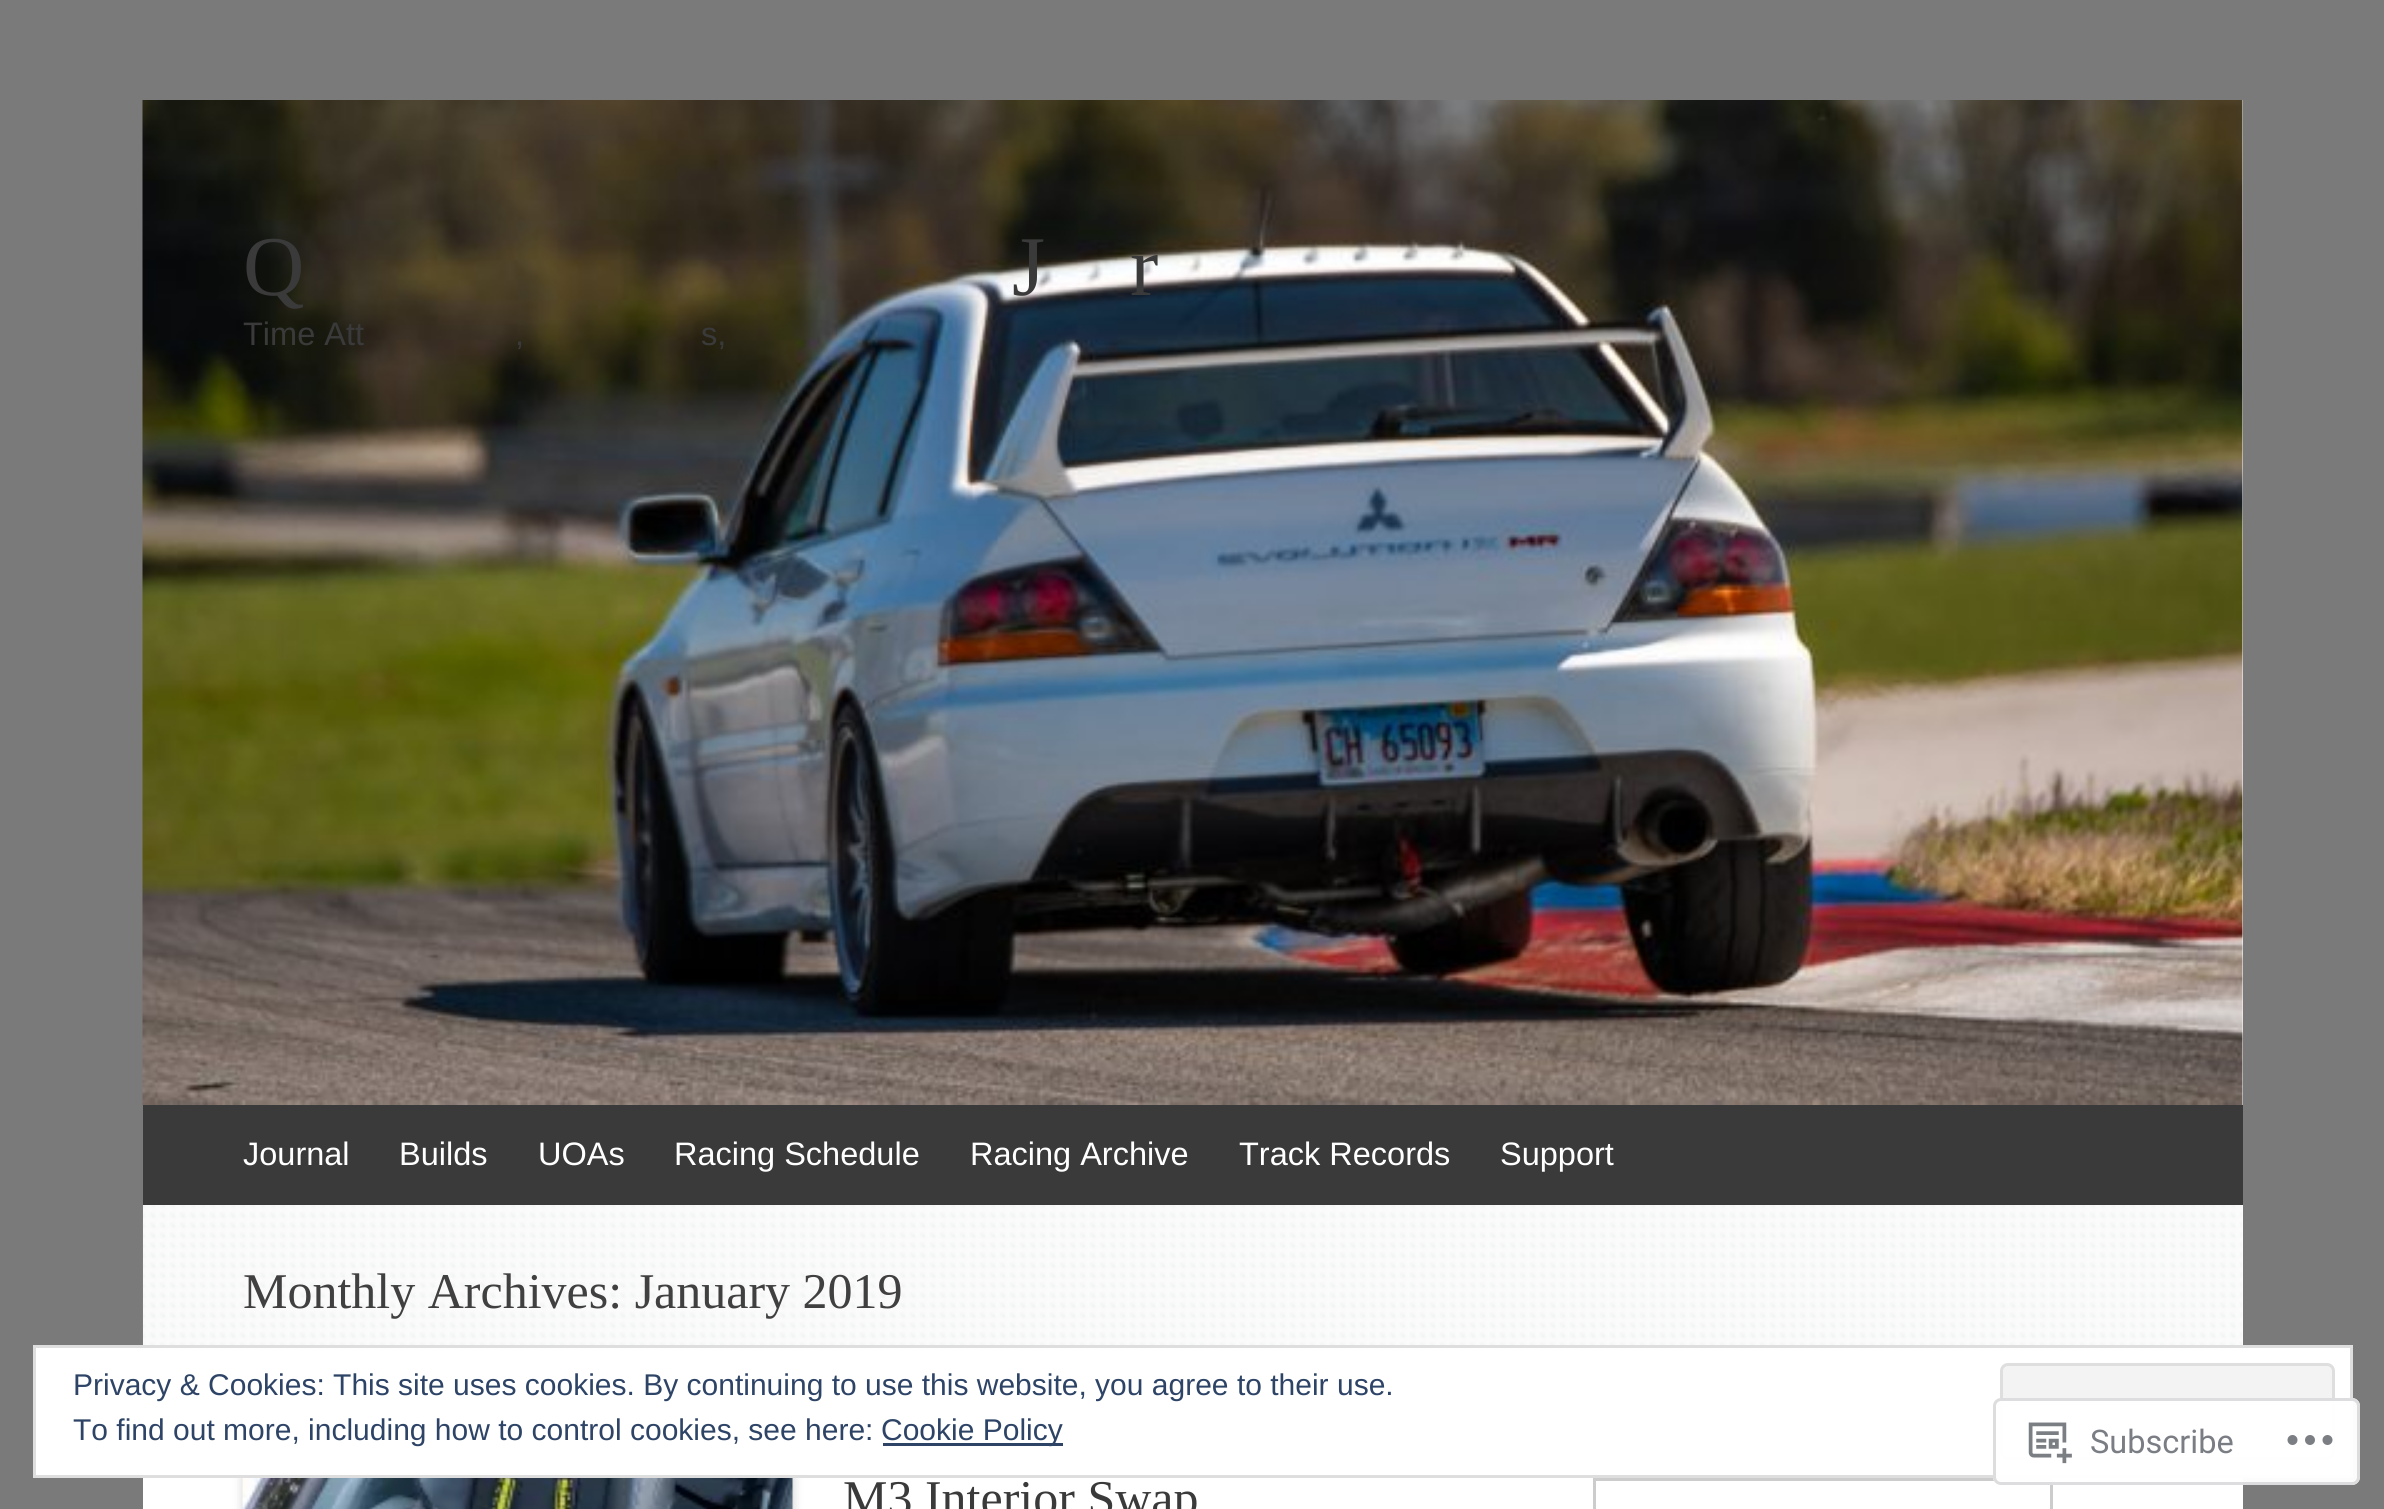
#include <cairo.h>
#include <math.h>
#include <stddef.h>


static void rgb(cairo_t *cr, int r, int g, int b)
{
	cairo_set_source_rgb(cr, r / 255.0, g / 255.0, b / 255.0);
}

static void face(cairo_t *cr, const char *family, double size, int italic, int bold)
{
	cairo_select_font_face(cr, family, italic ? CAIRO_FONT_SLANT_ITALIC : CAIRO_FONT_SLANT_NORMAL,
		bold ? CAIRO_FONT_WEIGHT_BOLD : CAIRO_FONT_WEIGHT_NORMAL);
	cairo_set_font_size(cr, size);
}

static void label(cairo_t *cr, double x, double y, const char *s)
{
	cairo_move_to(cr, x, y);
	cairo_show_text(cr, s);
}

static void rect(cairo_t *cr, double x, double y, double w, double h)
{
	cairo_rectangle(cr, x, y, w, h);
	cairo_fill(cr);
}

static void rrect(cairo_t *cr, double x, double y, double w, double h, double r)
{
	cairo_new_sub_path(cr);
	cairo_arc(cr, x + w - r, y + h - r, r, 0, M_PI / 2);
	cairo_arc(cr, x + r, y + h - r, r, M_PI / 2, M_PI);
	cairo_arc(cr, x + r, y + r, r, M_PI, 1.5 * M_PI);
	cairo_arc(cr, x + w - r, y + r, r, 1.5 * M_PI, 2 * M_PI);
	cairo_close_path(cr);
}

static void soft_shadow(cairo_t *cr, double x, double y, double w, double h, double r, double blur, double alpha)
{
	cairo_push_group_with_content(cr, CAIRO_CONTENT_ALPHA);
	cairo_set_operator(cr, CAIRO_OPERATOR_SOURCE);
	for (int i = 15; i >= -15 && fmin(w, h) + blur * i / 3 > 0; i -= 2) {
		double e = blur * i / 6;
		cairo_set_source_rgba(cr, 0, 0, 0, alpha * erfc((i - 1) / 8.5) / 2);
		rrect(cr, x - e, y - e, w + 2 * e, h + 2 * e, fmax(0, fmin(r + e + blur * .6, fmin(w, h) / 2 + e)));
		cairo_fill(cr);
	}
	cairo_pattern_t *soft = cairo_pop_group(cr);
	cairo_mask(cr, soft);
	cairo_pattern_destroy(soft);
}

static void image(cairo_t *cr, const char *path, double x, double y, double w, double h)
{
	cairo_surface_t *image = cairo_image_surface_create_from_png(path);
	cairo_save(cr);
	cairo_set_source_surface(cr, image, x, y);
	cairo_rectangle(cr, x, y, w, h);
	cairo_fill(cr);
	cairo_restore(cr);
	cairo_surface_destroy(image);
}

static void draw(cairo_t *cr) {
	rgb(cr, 122, 122, 122);
	cairo_paint(cr);
	rgb(cr, 255, 255, 255);
	rect(cr, 143, 100, 2100, 1409);
	image(cr, "image0.png", 142, 100, 2101, 1005);
	face(cr, "Liberation Serif", 85, 0, 0);
	rgb(cr, 58, 58, 58);
	label(cr, 243, 295, "Q");
	label(cr, 1012, 295, "J");
	label(cr, 1130, 295, "r");
	face(cr, "Liberation Sans", 32.5, 0, 0);
	label(cr, 243, 345, "Time Att");
	label(cr, 515, 345, ",");
	label(cr, 701, 345, "s,");
	rect(cr, 143, 1105, 2100, 100);
	rgb(cr, 255, 255, 255);
	label(cr, 243, 1165, "Journal");
	label(cr, 399, 1165, "Builds");
	label(cr, 538, 1165, "UOAs");
	label(cr, 674, 1165, "Racing Schedule");
	label(cr, 970, 1165, "Racing Archive");
	label(cr, 1239, 1165, "Track Records");
	label(cr, 1500, 1165, "Support");
	image(cr, "image1.png", 142, 1205, 2101, 140);
	face(cr, "Liberation Serif", 50, 0, 0);
	rgb(cr, 64, 64, 64);
	label(cr, 243, 1308, "Monthly Archives: January 2019");
	rgb(cr, 0, 0, 0);
	soft_shadow(cr, 243, 1478, 550, 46, 0, 5, 0.2);
	image(cr, "image2.png", 242, 1478, 551, 31);
	rgb(cr, 58, 58, 58);
	label(cr, 843, 1515, "M3 Interior Swap");
	cairo_rectangle(cr, 1594.5, 1479.5, 457, 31);
	rgb(cr, 204, 204, 204);
	cairo_set_line_width(cr, 3);
	cairo_stroke(cr);
	rgb(cr, 255, 255, 255);
	cairo_rectangle(cr, 34.5, 1346.5, 2317, 130);
	cairo_fill_preserve(cr);
	rgb(cr, 222, 222, 222);
	cairo_stroke(cr);
	face(cr, "Liberation Sans", 30, 0, 0);
	rgb(cr, 46, 68, 103);
	label(cr, 73, 1395, "Privacy & Cookies: This site uses cookies. By continuing to use this website, you agree to their use.");
	rgb(cr, 243, 243, 243);
	rrect(cr, 2001.5, 1364.5, 332, 94, 6.5);
	cairo_fill_preserve(cr);
	rgb(cr, 222, 222, 222);
	cairo_stroke(cr);
	rgb(cr, 46, 68, 103);
	label(cr, 73, 1440, "To find out more, including how to control cookies, see here:");
	rect(cr, 883, 1443, 180, 3);
	label(cr, 881, 1440, "Cookie Policy");
	cairo_set_source_rgba(cr, 1, 1, 1, 0.98);
	rrect(cr, 1993, 1398, 367, 87, 8);
	cairo_fill(cr);
	rrect(cr, 1994.5, 1399.5, 364, 84, 6.5);
	cairo_set_source_rgba(cr, 0.863, 0.863, 0.871, 0.98);
	cairo_stroke(cr);
	image(cr, "image3.png", 2028, 1422, 44, 42);
	face(cr, "Roboto", 32.5, 0, 0);
	rgb(cr, 122, 126, 132);
	label(cr, 2090, 1453, "Subscribe");
	image(cr, "image4.png", 2287, 1435, 46, 10);
}

int main(void) {
	cairo_surface_t *surface = cairo_image_surface_create(CAIRO_FORMAT_RGB24, 2384, 1509);
	cairo_t *cr = cairo_create(surface);
	cairo_font_options_t *options = cairo_font_options_create();
	cairo_font_options_set_hint_metrics(options, CAIRO_HINT_METRICS_OFF);
	cairo_font_options_set_hint_style(options, CAIRO_HINT_STYLE_NONE);
	cairo_set_font_options(cr, options);
	cairo_set_miter_limit(cr, 4);
	draw(cr);
	cairo_surface_write_to_png(surface, "render.png");
	cairo_font_options_destroy(options);
	cairo_destroy(cr);
	cairo_surface_destroy(surface);
	return 0;
}
